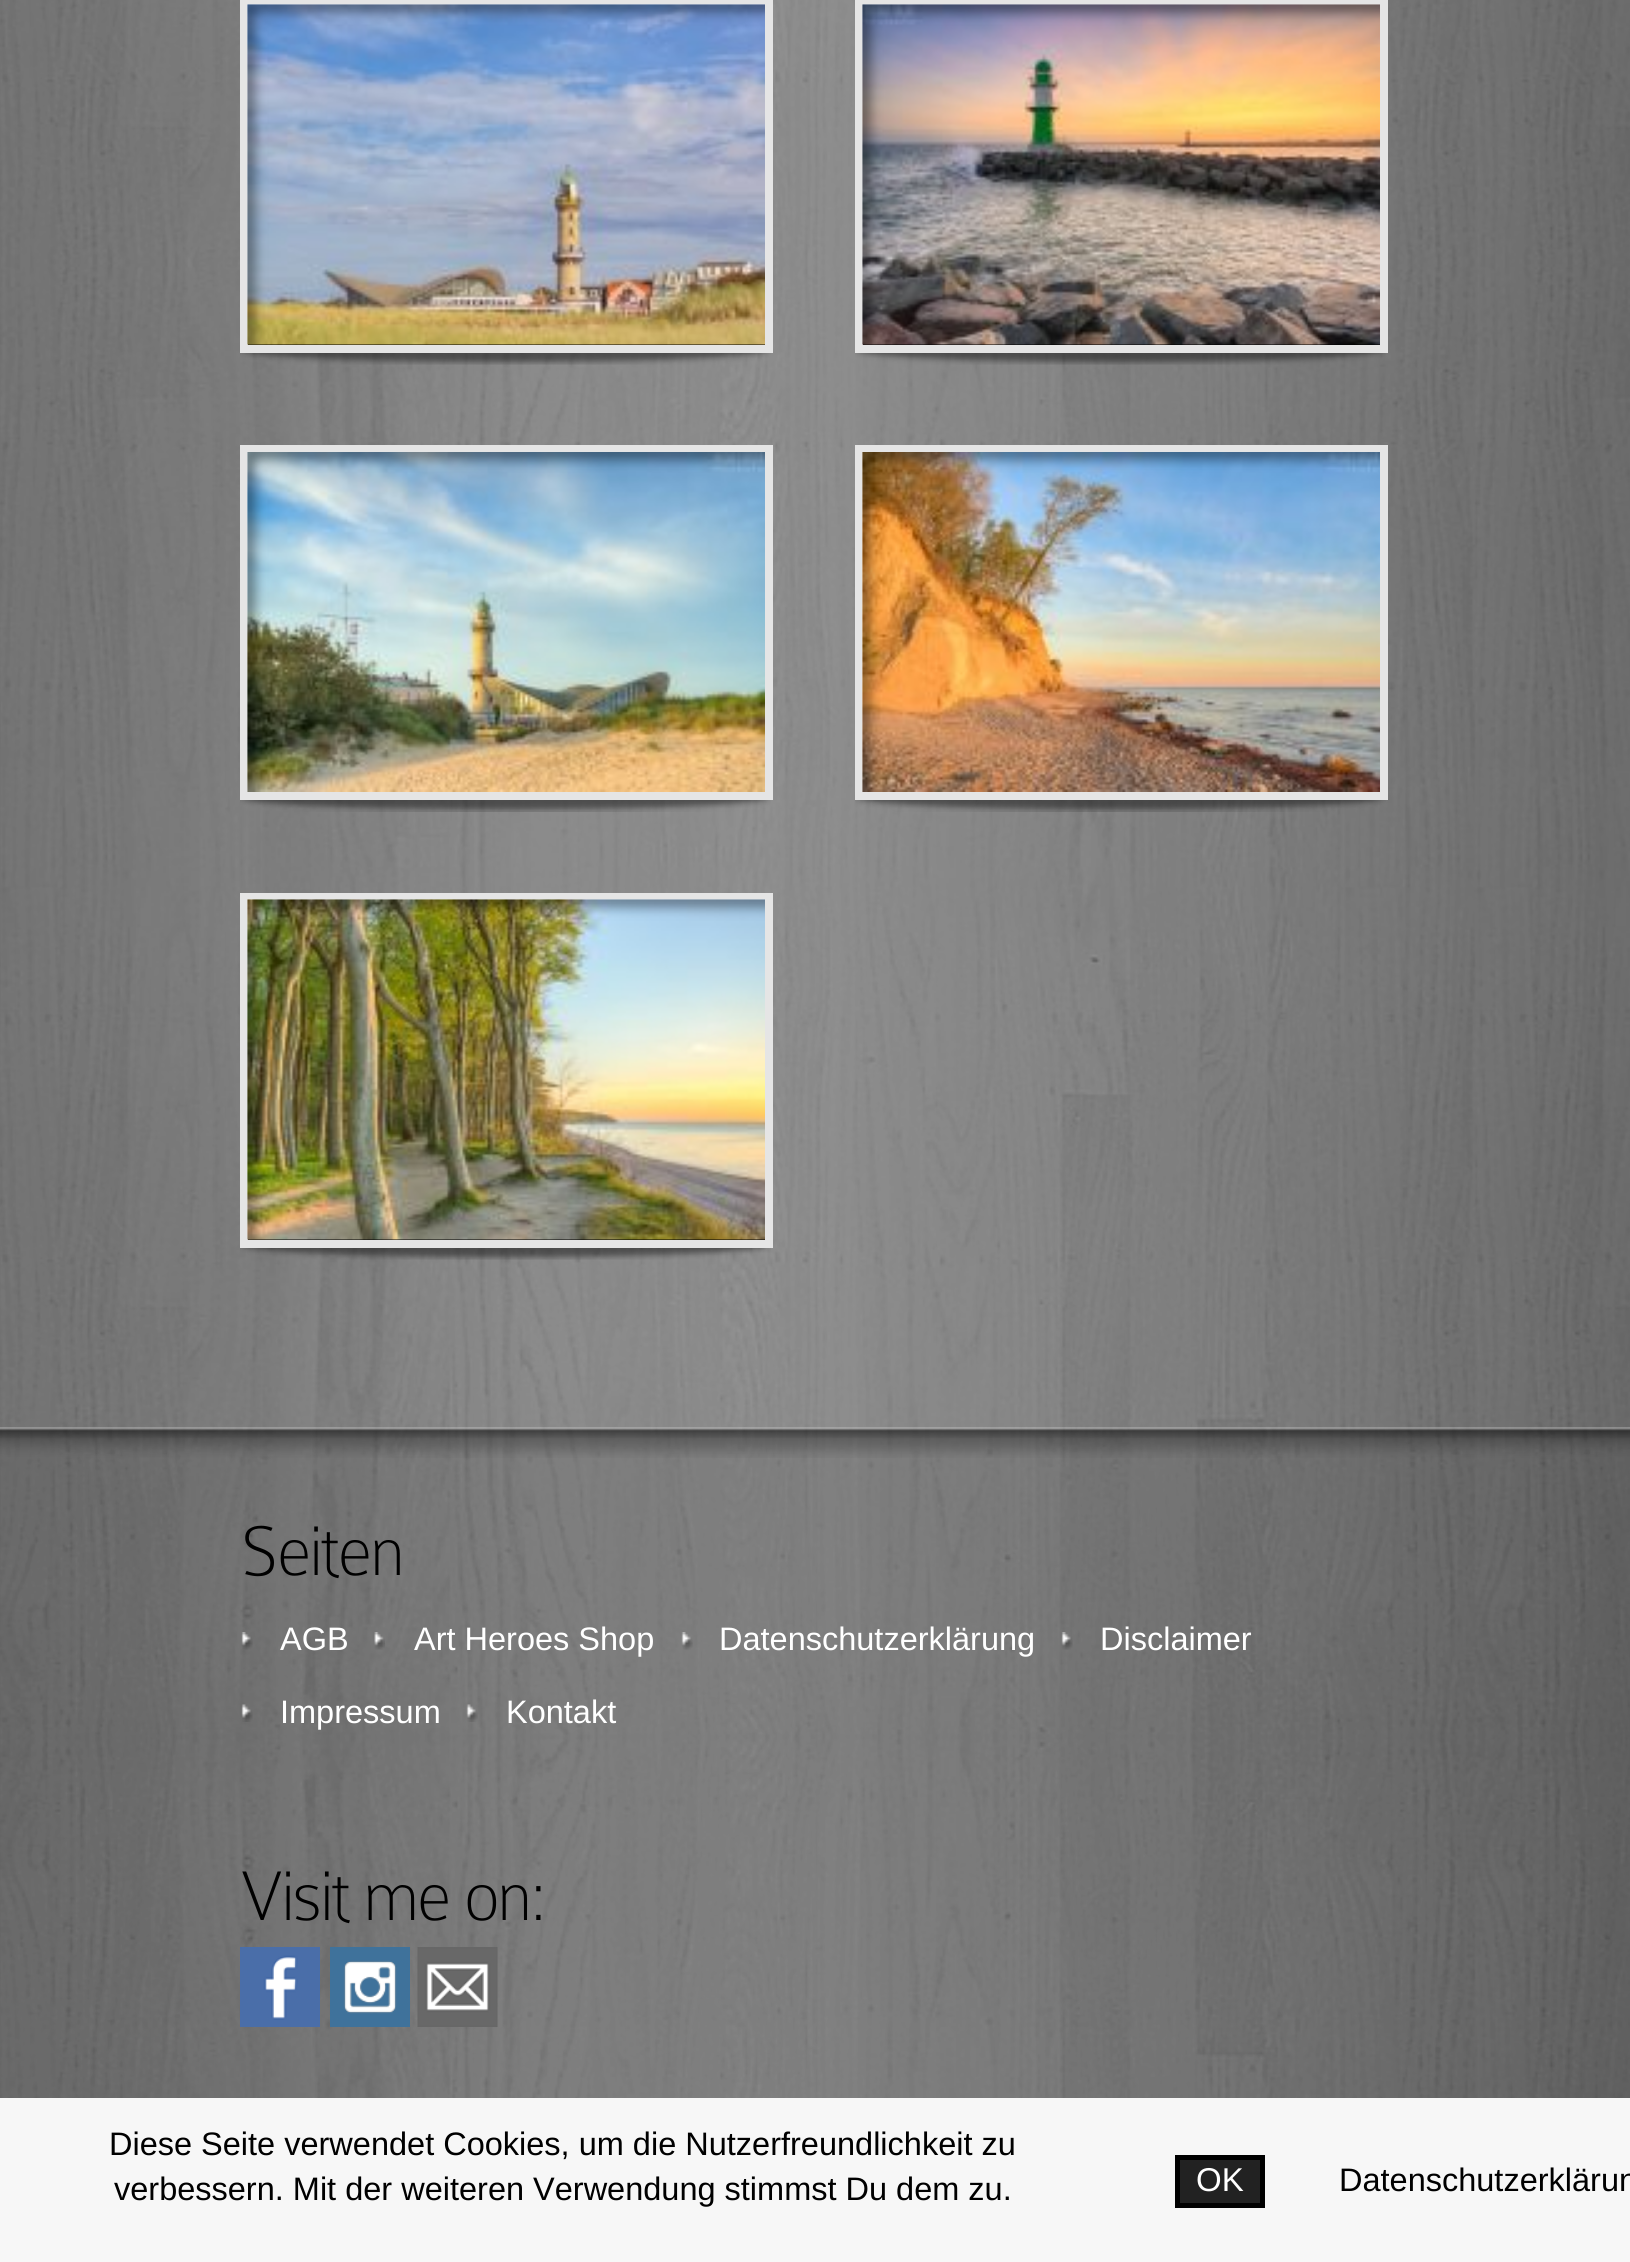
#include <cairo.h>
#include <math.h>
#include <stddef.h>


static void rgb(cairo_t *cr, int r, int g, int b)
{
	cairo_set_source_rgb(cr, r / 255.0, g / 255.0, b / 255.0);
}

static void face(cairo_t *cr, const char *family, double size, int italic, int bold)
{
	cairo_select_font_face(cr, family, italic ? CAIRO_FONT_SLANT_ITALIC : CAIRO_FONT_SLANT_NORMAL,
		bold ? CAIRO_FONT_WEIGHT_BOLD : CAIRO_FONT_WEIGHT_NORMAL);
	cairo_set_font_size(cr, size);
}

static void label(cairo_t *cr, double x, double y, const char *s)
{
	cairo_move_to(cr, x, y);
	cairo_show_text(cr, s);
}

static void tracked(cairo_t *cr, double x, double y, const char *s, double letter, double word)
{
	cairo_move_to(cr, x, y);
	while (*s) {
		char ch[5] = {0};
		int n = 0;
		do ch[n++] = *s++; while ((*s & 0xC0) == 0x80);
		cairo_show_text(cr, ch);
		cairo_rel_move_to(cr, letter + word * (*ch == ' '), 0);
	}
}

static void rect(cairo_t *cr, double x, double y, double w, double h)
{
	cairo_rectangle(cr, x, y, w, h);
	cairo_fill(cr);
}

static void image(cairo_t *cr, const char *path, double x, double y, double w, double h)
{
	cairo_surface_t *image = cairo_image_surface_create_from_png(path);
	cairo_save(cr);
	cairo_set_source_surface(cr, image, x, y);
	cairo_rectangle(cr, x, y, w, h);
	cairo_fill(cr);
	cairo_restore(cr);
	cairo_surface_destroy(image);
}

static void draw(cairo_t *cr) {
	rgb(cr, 255, 255, 255);
	cairo_paint(cr);
	image(cr, "image0.png", 0, 0, 1630, 2098);
	image(cr, "image1.png", 0, 0, 1630, 2098);
	image(cr, "image2.png", 240, 353, 531, 12);
	rgb(cr, 0, 0, 0);
	rect(cr, 248, 344, 517, 1);
	cairo_rectangle(cr, 244, 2, 525, 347);
	rgb(cr, 229, 229, 229);
	cairo_set_line_width(cr, 8);
	cairo_stroke(cr);
	image(cr, "image3.png", 247, 4, 518, 341);
	image(cr, "image4.png", 247, 4, 518, 341);
	image(cr, "image5.png", 855, 353, 531, 12);
	rgb(cr, 0, 0, 0);
	rect(cr, 863, 344, 517, 1);
	cairo_rectangle(cr, 859, 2, 525, 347);
	rgb(cr, 229, 229, 229);
	cairo_stroke(cr);
	image(cr, "image6.png", 862, 4, 518, 341);
	image(cr, "image7.png", 862, 4, 518, 341);
	image(cr, "image8.png", 240, 800, 531, 12);
	cairo_rectangle(cr, 244, 449, 525, 347);
	cairo_stroke(cr);
	image(cr, "image9.png", 247, 452, 518, 340);
	image(cr, "image10.png", 247, 452, 518, 340);
	image(cr, "image11.png", 855, 800, 531, 12);
	cairo_rectangle(cr, 859, 449, 525, 347);
	cairo_stroke(cr);
	image(cr, "image12.png", 862, 452, 518, 340);
	image(cr, "image13.png", 862, 452, 518, 340);
	image(cr, "image14.png", 240, 1248, 531, 12);
	rgb(cr, 0, 0, 0);
	rect(cr, 248, 1239, 517, 1);
	cairo_rectangle(cr, 244, 897, 525, 347);
	rgb(cr, 229, 229, 229);
	cairo_stroke(cr);
	image(cr, "image15.png", 247, 899, 518, 341);
	image(cr, "image16.png", 247, 899, 518, 341);
	cairo_set_source_rgba(cr, 0, 0, 0, 0.09);
	rect(cr, 0, 1427, 1630, 671);
	image(cr, "image17.png", 0, 1427, 1630, 11);
	image(cr, "image18.png", 0, 1427, 1630, 31);
	face(cr, "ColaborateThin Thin", 75, 0, 0);
	rgb(cr, 0, 0, 0);
	tracked(cr, 240, 1575, "Seiten", -2.5, 0);
	image(cr, "image19.png", 241, 1632, 12, 18);
	face(cr, "Liberation Sans", 32.5, 0, 0);
	rgb(cr, 255, 255, 255);
	label(cr, 280, 1650, "AGB");
	image(cr, "image20.png", 374, 1632, 11, 18);
	label(cr, 414, 1650, "Art Heroes Shop");
	image(cr, "image21.png", 681, 1632, 12, 18);
	label(cr, 719, 1650, "Datenschutzerklärung");
	image(cr, "image22.png", 1061, 1632, 12, 18);
	label(cr, 1100, 1650, "Disclaimer");
	image(cr, "image23.png", 241, 1704, 12, 18);
	label(cr, 280, 1723, "Impressum");
	image(cr, "image24.png", 466, 1704, 12, 18);
	label(cr, 506, 1723, "Kontakt");
	face(cr, "ColaborateThin Thin", 75, 0, 0);
	rgb(cr, 0, 0, 0);
	tracked(cr, 240, 1920, "Visit me on:", -2.5, 0);
	image(cr, "image25.png", 240, 1947, 80, 80);
	image(cr, "image26.png", 330, 1947, 80, 80);
	image(cr, "image27.png", 417, 1947, 81, 80);
	rgb(cr, 247, 247, 247);
	rect(cr, 0, 2098, 1630, 164);
	face(cr, "Liberation Sans", 32.5, 0, 0);
	rgb(cr, 0, 0, 0);
	label(cr, 109, 2155, "Diese Seite verwendet Cookies, um die Nutzerfreundlichkeit zu");
	label(cr, 114, 2200, "verbessern. Mit der weiteren Verwendung stimmst Du dem zu.");
	rgb(cr, 34, 34, 34);
	cairo_rectangle(cr, 1177.5, 2157.5, 85, 48);
	cairo_fill_preserve(cr);
	rgb(cr, 0, 0, 0);
	cairo_set_line_width(cr, 5);
	cairo_stroke(cr);
	face(cr, "Liberation Sans", 33, 0, 0);
	rgb(cr, 255, 255, 255);
	label(cr, 1196, 2191, "OK");
	face(cr, "Liberation Sans", 32.5, 0, 0);
	rgb(cr, 0, 0, 0);
	label(cr, 1339, 2191, "Datenschutzerklärun");
}

int main(void) {
	cairo_surface_t *surface = cairo_image_surface_create(CAIRO_FORMAT_RGB24, 1630, 2262);
	cairo_t *cr = cairo_create(surface);
	cairo_font_options_t *options = cairo_font_options_create();
	cairo_font_options_set_hint_metrics(options, CAIRO_HINT_METRICS_OFF);
	cairo_font_options_set_hint_style(options, CAIRO_HINT_STYLE_NONE);
	cairo_set_font_options(cr, options);
	cairo_set_miter_limit(cr, 4);
	draw(cr);
	cairo_surface_write_to_png(surface, "render.png");
	cairo_font_options_destroy(options);
	cairo_destroy(cr);
	cairo_surface_destroy(surface);
	return 0;
}
